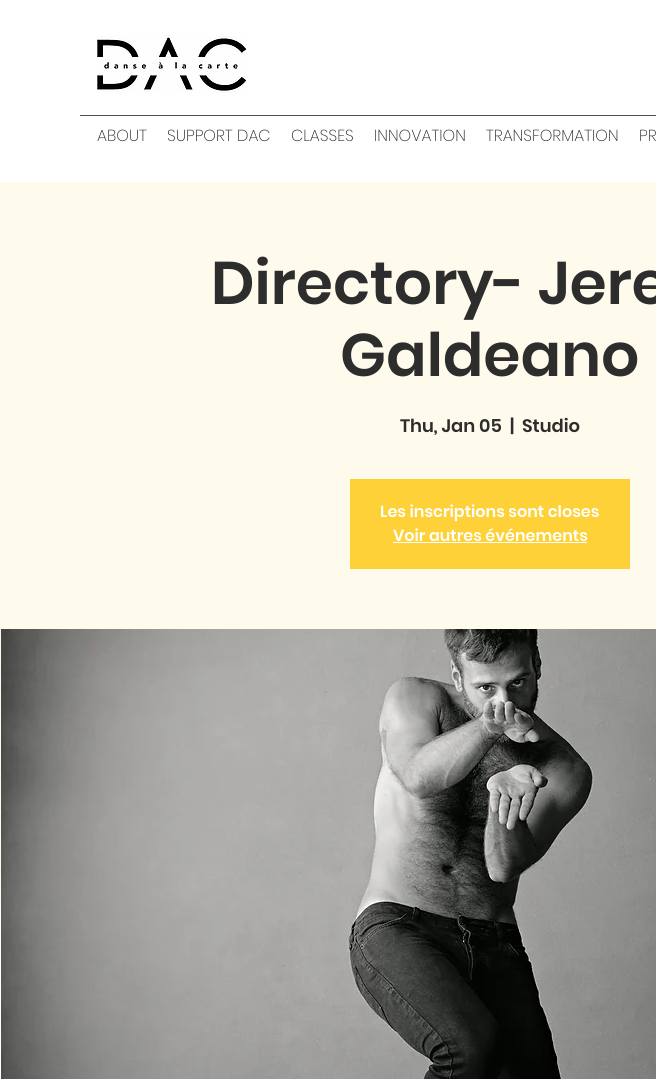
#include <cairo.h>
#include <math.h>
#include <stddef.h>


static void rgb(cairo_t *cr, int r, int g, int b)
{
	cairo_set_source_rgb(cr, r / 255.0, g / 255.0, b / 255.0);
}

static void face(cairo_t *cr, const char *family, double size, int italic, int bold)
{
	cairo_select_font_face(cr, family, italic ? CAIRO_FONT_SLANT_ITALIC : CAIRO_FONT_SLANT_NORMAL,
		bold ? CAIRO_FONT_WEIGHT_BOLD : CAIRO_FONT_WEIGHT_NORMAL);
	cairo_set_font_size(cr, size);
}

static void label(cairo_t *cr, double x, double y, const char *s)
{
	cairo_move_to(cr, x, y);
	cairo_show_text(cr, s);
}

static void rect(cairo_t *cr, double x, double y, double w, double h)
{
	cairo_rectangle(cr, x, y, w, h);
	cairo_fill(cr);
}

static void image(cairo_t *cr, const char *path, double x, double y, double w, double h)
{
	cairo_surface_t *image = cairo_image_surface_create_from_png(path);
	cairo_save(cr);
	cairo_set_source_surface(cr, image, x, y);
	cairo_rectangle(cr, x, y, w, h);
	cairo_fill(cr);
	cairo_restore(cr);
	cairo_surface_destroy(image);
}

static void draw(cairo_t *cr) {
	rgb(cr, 255, 255, 255);
	cairo_paint(cr);
	rgb(cr, 77, 77, 77);
	rect(cr, 80, 115, 576, 1);
	image(cr, "image0.png", 97, 35, 150, 58);
	face(cr, "Poppins ExtraLight", 16, 0, 0);
	rgb(cr, 45, 45, 45);
	label(cr, 97, 141, "ABOUT");
	label(cr, 167, 141, "SUPPORT DAC");
	label(cr, 291, 141, "CLASSES");
	label(cr, 374, 141, "INNOVATION");
	label(cr, 486, 141, "TRANSFORMATION");
	label(cr, 639, 141, "PR");
	rgb(cr, 255, 251, 236);
	rect(cr, 0, 182, 656, 723);
	face(cr, "Poppins SemiBold", 60, 0, 0);
	rgb(cr, 45, 45, 45);
	label(cr, 211, 304, "Directory- Jere");
	label(cr, 340, 376, "Galdeano");
	face(cr, "Poppins SemiBold", 18, 0, 0);
	label(cr, 400, 432, "Thu, Jan 05");
	label(cr, 510, 432, "|");
	label(cr, 522, 432, "Studio");
	rgb(cr, 255, 209, 56);
	rect(cr, 350, 479, 280, 90);
	face(cr, "Poppins SemiBold", 16, 0, 0);
	rgb(cr, 255, 255, 255);
	label(cr, 380, 517, "Les inscriptions sont closes");
	label(cr, 393, 541, "Voir autres événements");
	rect(cr, 393, 542, 194, 1);
	image(cr, "image1.png", 1, 629, 655, 450);
}

int main(void) {
	cairo_surface_t *surface = cairo_image_surface_create(CAIRO_FORMAT_RGB24, 656, 1079);
	cairo_t *cr = cairo_create(surface);
	cairo_font_options_t *options = cairo_font_options_create();
	cairo_font_options_set_hint_metrics(options, CAIRO_HINT_METRICS_OFF);
	cairo_font_options_set_hint_style(options, CAIRO_HINT_STYLE_NONE);
	cairo_set_font_options(cr, options);
	cairo_set_miter_limit(cr, 4);
	draw(cr);
	cairo_surface_write_to_png(surface, "render.png");
	cairo_font_options_destroy(options);
	cairo_destroy(cr);
	cairo_surface_destroy(surface);
	return 0;
}
